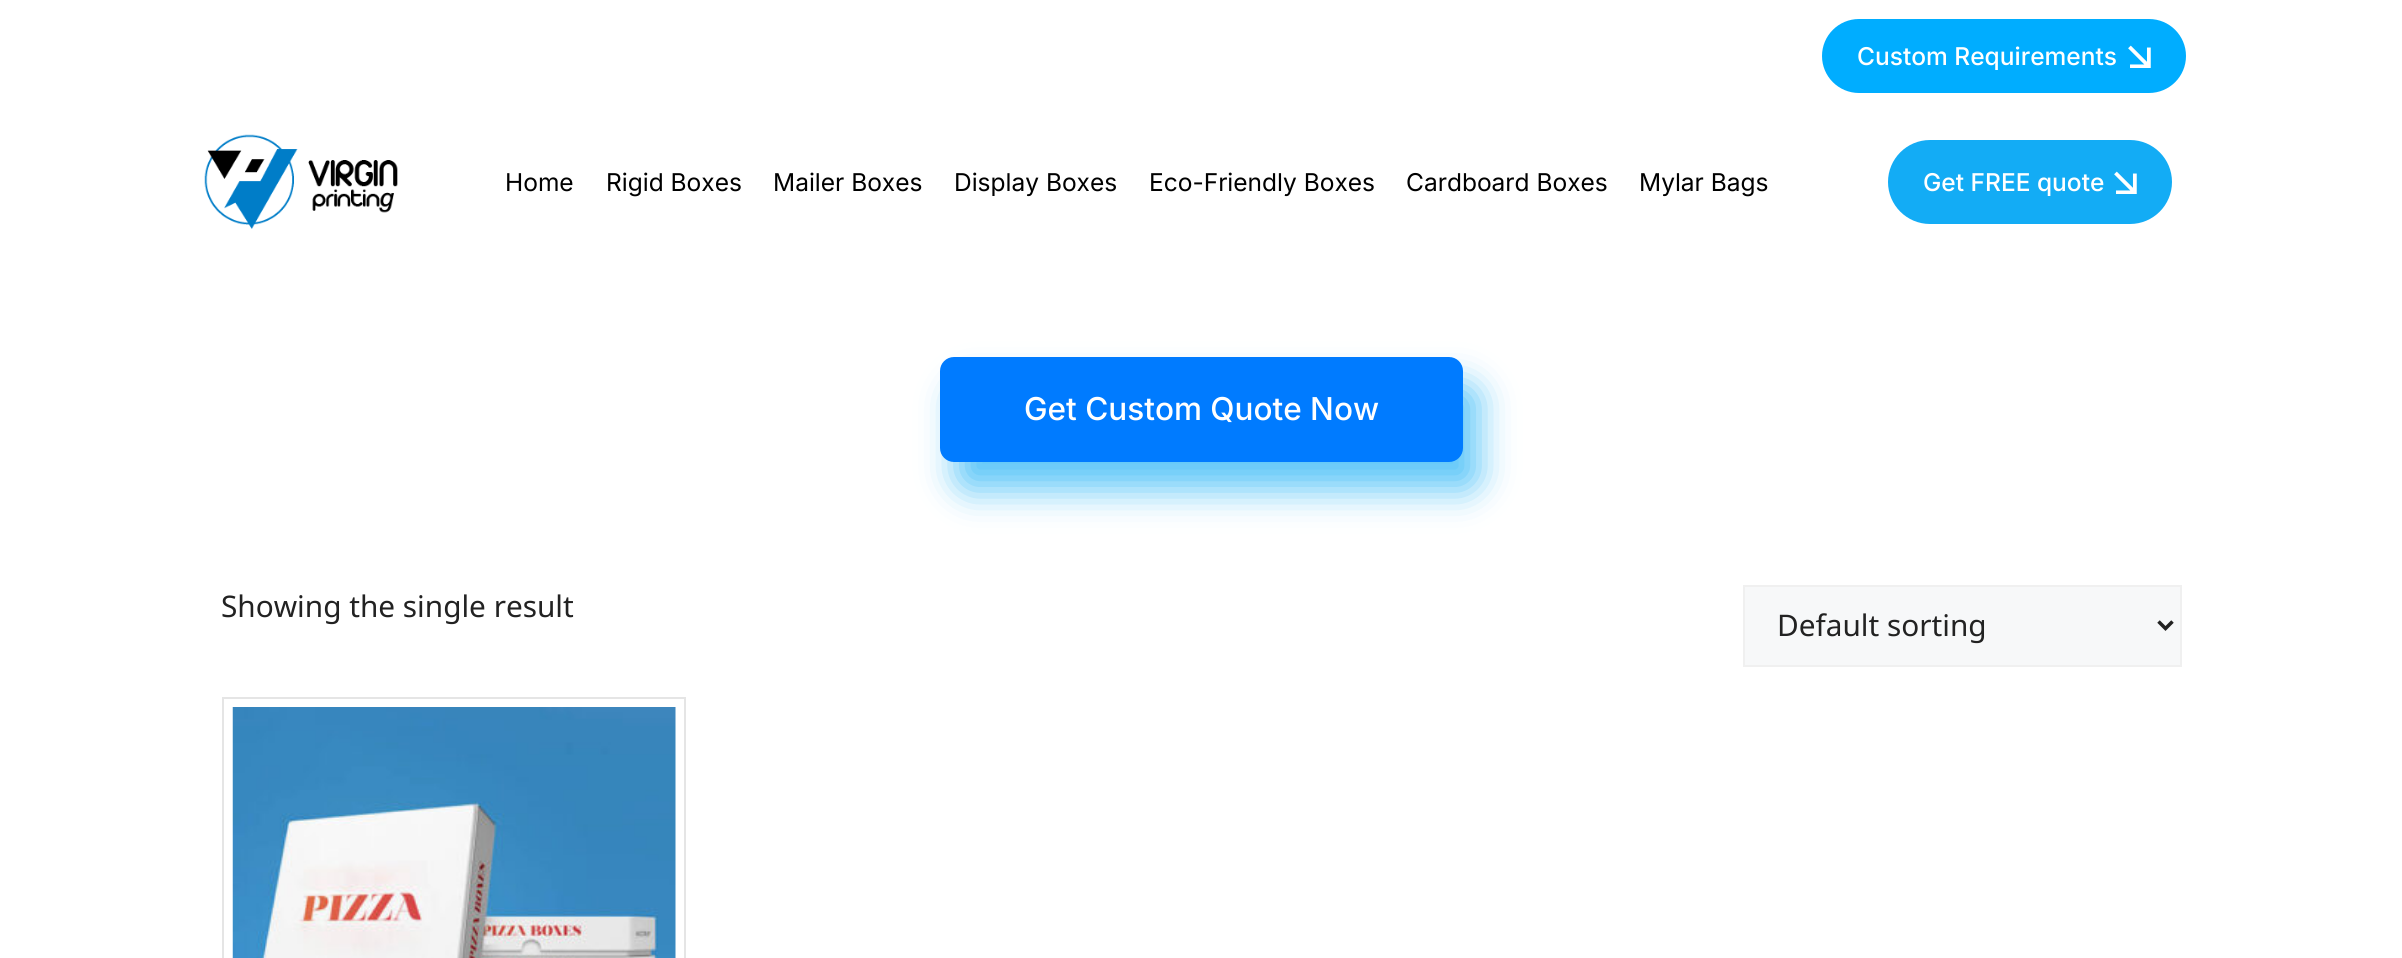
#include <cairo.h>
#include <math.h>
#include <stddef.h>


static void rgb(cairo_t *cr, int r, int g, int b)
{
	cairo_set_source_rgb(cr, r / 255.0, g / 255.0, b / 255.0);
}

static void face(cairo_t *cr, const char *family, double size, int italic, int bold)
{
	cairo_select_font_face(cr, family, italic ? CAIRO_FONT_SLANT_ITALIC : CAIRO_FONT_SLANT_NORMAL,
		bold ? CAIRO_FONT_WEIGHT_BOLD : CAIRO_FONT_WEIGHT_NORMAL);
	cairo_set_font_size(cr, size);
}

static void label(cairo_t *cr, double x, double y, const char *s)
{
	cairo_move_to(cr, x, y);
	cairo_show_text(cr, s);
}

static void rrect(cairo_t *cr, double x, double y, double w, double h, double r)
{
	cairo_new_sub_path(cr);
	cairo_arc(cr, x + w - r, y + h - r, r, 0, M_PI / 2);
	cairo_arc(cr, x + r, y + h - r, r, M_PI / 2, M_PI);
	cairo_arc(cr, x + r, y + r, r, M_PI, 1.5 * M_PI);
	cairo_arc(cr, x + w - r, y + r, r, 1.5 * M_PI, 2 * M_PI);
	cairo_close_path(cr);
}

static void soft_shadow(cairo_t *cr, double x, double y, double w, double h, double r, double blur, double alpha)
{
	cairo_push_group_with_content(cr, CAIRO_CONTENT_ALPHA);
	cairo_set_operator(cr, CAIRO_OPERATOR_SOURCE);
	for (int i = 15; i >= -15 && fmin(w, h) + blur * i / 3 > 0; i -= 2) {
		double e = blur * i / 6;
		cairo_set_source_rgba(cr, 0, 0, 0, alpha * erfc((i - 1) / 8.5) / 2);
		rrect(cr, x - e, y - e, w + 2 * e, h + 2 * e, fmax(0, fmin(r + e + blur * .6, fmin(w, h) / 2 + e)));
		cairo_fill(cr);
	}
	cairo_pattern_t *soft = cairo_pop_group(cr);
	cairo_mask(cr, soft);
	cairo_pattern_destroy(soft);
}

static void image(cairo_t *cr, const char *path, double x, double y, double w, double h)
{
	cairo_surface_t *image = cairo_image_surface_create_from_png(path);
	cairo_save(cr);
	cairo_set_source_surface(cr, image, x, y);
	cairo_rectangle(cr, x, y, w, h);
	cairo_fill(cr);
	cairo_restore(cr);
	cairo_surface_destroy(image);
}

static void draw(cairo_t *cr) {
	rgb(cr, 255, 255, 255);
	cairo_paint(cr);
	rgb(cr, 0, 173, 255);
	rrect(cr, 1822, 19, 364, 74, 37);
	cairo_fill(cr);
	face(cr, "Inter Medium", 24.5, 0, 0);
	rgb(cr, 255, 255, 255);
	label(cr, 1857, 65, "Custom Requirements");
	image(cr, "image0.png", 2128, 45, 23, 23);
	image(cr, "image1.png", 204, 134, 194, 95);
	face(cr, "Inter", 24.5, 0, 0);
	rgb(cr, 0, 0, 0);
	label(cr, 505, 191, "Home");
	label(cr, 606, 191, "Rigid Boxes");
	label(cr, 773, 191, "Mailer Boxes");
	label(cr, 954, 191, "Display Boxes");
	label(cr, 1149, 191, "Eco-Friendly Boxes");
	label(cr, 1406, 191, "Cardboard Boxes");
	label(cr, 1639, 191, "Mylar Bags");
	rgb(cr, 19, 172, 245);
	rrect(cr, 1888, 140, 284, 84, 42);
	cairo_fill(cr);
	face(cr, "Inter Medium", 24.5, 0, 0);
	rgb(cr, 255, 255, 255);
	label(cr, 1923, 191, "Get FREE quote");
	image(cr, "image2.png", 2114, 171, 23, 23);
	rgb(cr, 19, 173, 245);
	soft_shadow(cr, 956, 385, 523, 105, 14, 17.5, 0.68);
	rgb(cr, 0, 123, 255);
	rrect(cr, 940, 357, 523, 105, 14);
	cairo_fill(cr);
	face(cr, "Inter Medium", 31.5, 0, 0);
	rgb(cr, 255, 255, 255);
	label(cr, 1024, 420, "Get Custom Quote Now");
	face(cr, "Noto Sans", 29.75, 0, 0);
	rgb(cr, 34, 34, 34);
	label(cr, 221, 617, "Showing the single result");
	rgb(cr, 247, 248, 249);
	cairo_rectangle(cr, 1744, 586, 437, 80);
	cairo_fill_preserve(cr);
	rgb(cr, 240, 240, 240);
	cairo_stroke(cr);
	cairo_new_path(cr);
	cairo_move_to(cr, 2158.5, 621.5);
	cairo_line_to(cr, 2165.5, 628.5);
	cairo_line_to(cr, 2172.5, 621.5);
	rgb(cr, 34, 34, 34);
	cairo_set_line_width(cr, 3.5);
	cairo_stroke(cr);
	label(cr, 1777, 636, "Default sorting");
	cairo_rectangle(cr, 223, 698, 462, 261);
	rgb(cr, 229, 229, 229);
	cairo_set_line_width(cr, 2);
	cairo_stroke(cr);
	image(cr, "image3.png", 232, 707, 444, 251);
}

int main(void) {
	cairo_surface_t *surface = cairo_image_surface_create(CAIRO_FORMAT_RGB24, 2402, 958);
	cairo_t *cr = cairo_create(surface);
	cairo_font_options_t *options = cairo_font_options_create();
	cairo_font_options_set_hint_metrics(options, CAIRO_HINT_METRICS_OFF);
	cairo_font_options_set_hint_style(options, CAIRO_HINT_STYLE_NONE);
	cairo_set_font_options(cr, options);
	cairo_set_miter_limit(cr, 4);
	draw(cr);
	cairo_surface_write_to_png(surface, "render.png");
	cairo_font_options_destroy(options);
	cairo_destroy(cr);
	cairo_surface_destroy(surface);
	return 0;
}
